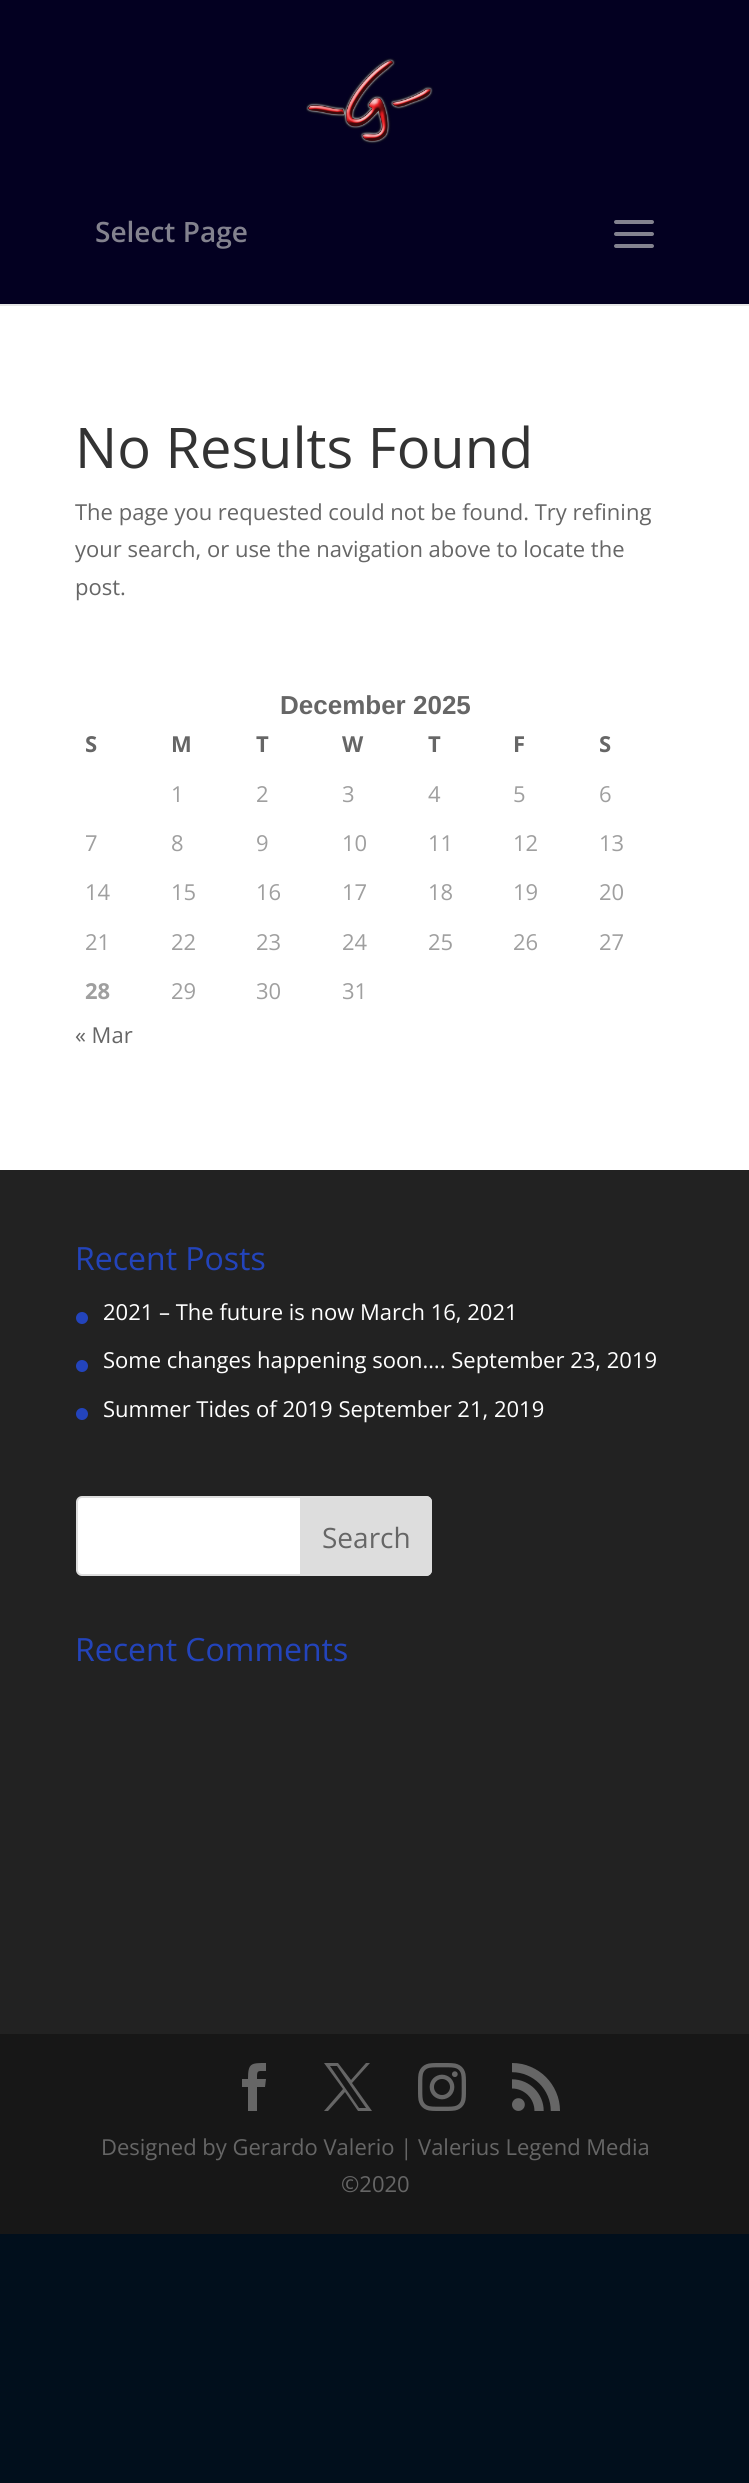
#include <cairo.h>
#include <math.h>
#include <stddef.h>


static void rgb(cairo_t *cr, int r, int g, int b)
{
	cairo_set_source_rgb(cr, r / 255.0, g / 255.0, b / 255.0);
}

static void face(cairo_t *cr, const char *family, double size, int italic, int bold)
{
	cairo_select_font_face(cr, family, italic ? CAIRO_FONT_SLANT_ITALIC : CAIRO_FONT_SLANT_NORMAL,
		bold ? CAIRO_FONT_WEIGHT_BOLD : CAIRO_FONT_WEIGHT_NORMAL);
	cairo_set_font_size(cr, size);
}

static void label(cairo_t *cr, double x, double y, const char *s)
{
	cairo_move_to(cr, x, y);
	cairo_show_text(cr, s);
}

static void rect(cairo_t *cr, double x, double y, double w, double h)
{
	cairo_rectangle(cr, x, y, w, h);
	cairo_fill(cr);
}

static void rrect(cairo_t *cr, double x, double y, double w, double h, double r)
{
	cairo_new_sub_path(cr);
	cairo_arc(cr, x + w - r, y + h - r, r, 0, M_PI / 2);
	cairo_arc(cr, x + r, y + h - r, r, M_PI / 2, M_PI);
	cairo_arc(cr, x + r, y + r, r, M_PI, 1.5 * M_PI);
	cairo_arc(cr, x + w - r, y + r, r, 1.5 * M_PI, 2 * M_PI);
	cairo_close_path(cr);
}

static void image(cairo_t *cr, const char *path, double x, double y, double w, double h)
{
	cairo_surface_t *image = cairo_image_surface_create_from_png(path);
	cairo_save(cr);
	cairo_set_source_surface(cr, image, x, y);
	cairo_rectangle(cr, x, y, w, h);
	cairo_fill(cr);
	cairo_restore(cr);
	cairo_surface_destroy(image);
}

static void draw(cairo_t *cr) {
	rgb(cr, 1, 15, 28);
	cairo_paint(cr);
	rgb(cr, 230, 230, 230);
	rect(cr, 0, 304, 749, 2);
	rgb(cr, 3, 0, 33);
	rect(cr, 0, 0, 749, 304);
	image(cr, "image0.png", 306, 58, 127, 86);
	face(cr, "Open Sans SemiBold", 28, 0, 0);
	rgb(cr, 131, 130, 142);
	label(cr, 95, 242, "Select Page");
	image(cr, "image1.png", 614, 220, 40, 28);
	rgb(cr, 255, 255, 255);
	rect(cr, 0, 306, 749, 864);
	face(cr, "Open Sans", 56, 0, 0);
	rgb(cr, 51, 51, 51);
	label(cr, 75, 468, "No Results Found");
	face(cr, "Open Sans", 22, 0, 0);
	rgb(cr, 102, 102, 102);
	label(cr, 75, 520, "The page you requested could not be found. Try refining");
	label(cr, 75, 557, "your search, or use the navigation above to locate the");
	label(cr, 75, 595, "post.");
	face(cr, "Liberation Sans", 26, 0, 1);
	label(cr, 280, 714, "December 2025");
	face(cr, "Open Sans", 22, 0, 1);
	label(cr, 85, 752, "S");
	label(cr, 171, 752, "M");
	label(cr, 256, 752, "T");
	label(cr, 342, 752, "W");
	label(cr, 428, 752, "T");
	label(cr, 513, 752, "F");
	label(cr, 599, 752, "S");
	face(cr, "Open Sans", 22, 0, 0);
	rgb(cr, 159, 159, 159);
	label(cr, 171, 802, "1");
	label(cr, 256, 802, "2");
	label(cr, 342, 802, "3");
	label(cr, 428, 802, "4");
	label(cr, 513, 802, "5");
	label(cr, 599, 802, "6");
	label(cr, 85, 851, "7");
	label(cr, 171, 851, "8");
	label(cr, 256, 851, "9");
	label(cr, 342, 851, "10");
	label(cr, 428, 851, "11");
	label(cr, 513, 851, "12");
	label(cr, 599, 851, "13");
	label(cr, 85, 900, "14");
	label(cr, 171, 900, "15");
	label(cr, 256, 900, "16");
	label(cr, 342, 900, "17");
	label(cr, 428, 900, "18");
	label(cr, 513, 900, "19");
	label(cr, 599, 900, "20");
	label(cr, 85, 950, "21");
	label(cr, 171, 950, "22");
	label(cr, 256, 950, "23");
	label(cr, 342, 950, "24");
	label(cr, 428, 950, "25");
	label(cr, 513, 950, "26");
	label(cr, 599, 950, "27");
	face(cr, "Open Sans", 22, 0, 1);
	label(cr, 85, 999, "28");
	face(cr, "Open Sans", 22, 0, 0);
	label(cr, 171, 999, "29");
	label(cr, 256, 999, "30");
	label(cr, 342, 999, "31");
	rgb(cr, 102, 102, 102);
	label(cr, 75, 1043, "« Mar");
	rgb(cr, 34, 34, 34);
	rect(cr, 0, 1170, 749, 864);
	face(cr, "Open Sans", 32, 0, 0);
	rgb(cr, 35, 68, 188);
	label(cr, 75, 1270, "Recent Posts");
	cairo_new_path(cr);
	cairo_arc(cr, 82, 1318, 6, 0, 2 * M_PI);
	cairo_fill(cr);
	face(cr, "Open Sans", 22, 0, 0);
	rgb(cr, 255, 255, 255);
	label(cr, 103, 1320, "2021 – The future is now March 16, 2021");
	rgb(cr, 35, 68, 188);
	cairo_new_path(cr);
	cairo_arc(cr, 82, 1366, 6, 0, 2 * M_PI);
	cairo_fill(cr);
	rgb(cr, 255, 255, 255);
	label(cr, 103, 1368, "Some changes happening soon…. September 23, 2019");
	rgb(cr, 35, 68, 188);
	cairo_new_path(cr);
	cairo_arc(cr, 82, 1414, 6, 0, 2 * M_PI);
	cairo_fill(cr);
	rgb(cr, 255, 255, 255);
	label(cr, 103, 1417, "Summer Tides of 2019 September 21, 2019");
	rrect(cr, 77, 1497, 354, 78, 5);
	cairo_fill_preserve(cr);
	rgb(cr, 221, 221, 221);
	cairo_stroke(cr);
	cairo_new_path(cr);
	cairo_move_to(cr, 301, 1497);
	cairo_line_to(cr, 426, 1497);
	cairo_curve_to(cr, 429, 1497, 431, 1499, 431, 1502);
	cairo_line_to(cr, 431, 1570);
	cairo_curve_to(cr, 431, 1573, 429, 1575, 426, 1575);
	cairo_line_to(cr, 301, 1575);
	cairo_close_path(cr);
	cairo_fill_preserve(cr);
	cairo_stroke(cr);
	face(cr, "Open Sans", 28, 0, 0);
	rgb(cr, 102, 102, 102);
	label(cr, 322, 1548, "Search");
	face(cr, "Open Sans", 32, 0, 0);
	rgb(cr, 35, 68, 188);
	label(cr, 75, 1661, "Recent Comments");
	rgb(cr, 23, 23, 23);
	rect(cr, 0, 2034, 749, 200);
	rgb(cr, 102, 102, 102);
	cairo_new_path(cr);
	cairo_move_to(cr, 248, 2111);
	cairo_line_to(cr, 257, 2111);
	cairo_line_to(cr, 257, 2087);
	cairo_line_to(cr, 265, 2087);
	cairo_line_to(cr, 266, 2079);
	cairo_line_to(cr, 257, 2079);
	cairo_curve_to(cr, 257, 2070, 257, 2071, 266, 2071);
	cairo_line_to(cr, 266, 2063);
	cairo_curve_to(cr, 251, 2063, 248, 2063, 248, 2079);
	cairo_line_to(cr, 242, 2079);
	cairo_line_to(cr, 242, 2087);
	cairo_line_to(cr, 248, 2087);
	cairo_close_path(cr);
	cairo_fill(cr);
	cairo_new_path(cr);
	cairo_move_to(cr, 324, 2063);
	cairo_line_to(cr, 343, 2089);
	cairo_line_to(cr, 324, 2111);
	cairo_line_to(cr, 328, 2111);
	cairo_line_to(cr, 345, 2092);
	cairo_line_to(cr, 358, 2111);
	cairo_line_to(cr, 372, 2111);
	cairo_line_to(cr, 352, 2083);
	cairo_line_to(cr, 370, 2063);
	cairo_line_to(cr, 366, 2063);
	cairo_line_to(cr, 351, 2080);
	cairo_line_to(cr, 338, 2063);
	cairo_close_path(cr);
	cairo_move_to(cr, 330, 2066);
	cairo_line_to(cr, 337, 2066);
	cairo_line_to(cr, 366, 2108);
	cairo_line_to(cr, 359, 2108);
	cairo_close_path(cr);
	cairo_fill(cr);
	image(cr, "image2.png", 418, 2063, 48, 48);
	image(cr, "image3.png", 512, 2063, 48, 48);
	face(cr, "Open Sans", 22, 0, 0);
	label(cr, 101, 2155, "Designed by Gerardo Valerio | Valerius Legend Media");
	label(cr, 341, 2192, "©2020");
}

int main(void) {
	cairo_surface_t *surface = cairo_image_surface_create(CAIRO_FORMAT_RGB24, 749, 2483);
	cairo_t *cr = cairo_create(surface);
	cairo_font_options_t *options = cairo_font_options_create();
	cairo_font_options_set_hint_metrics(options, CAIRO_HINT_METRICS_OFF);
	cairo_font_options_set_hint_style(options, CAIRO_HINT_STYLE_NONE);
	cairo_set_font_options(cr, options);
	cairo_set_miter_limit(cr, 4);
	draw(cr);
	cairo_surface_write_to_png(surface, "render.png");
	cairo_font_options_destroy(options);
	cairo_destroy(cr);
	cairo_surface_destroy(surface);
	return 0;
}
